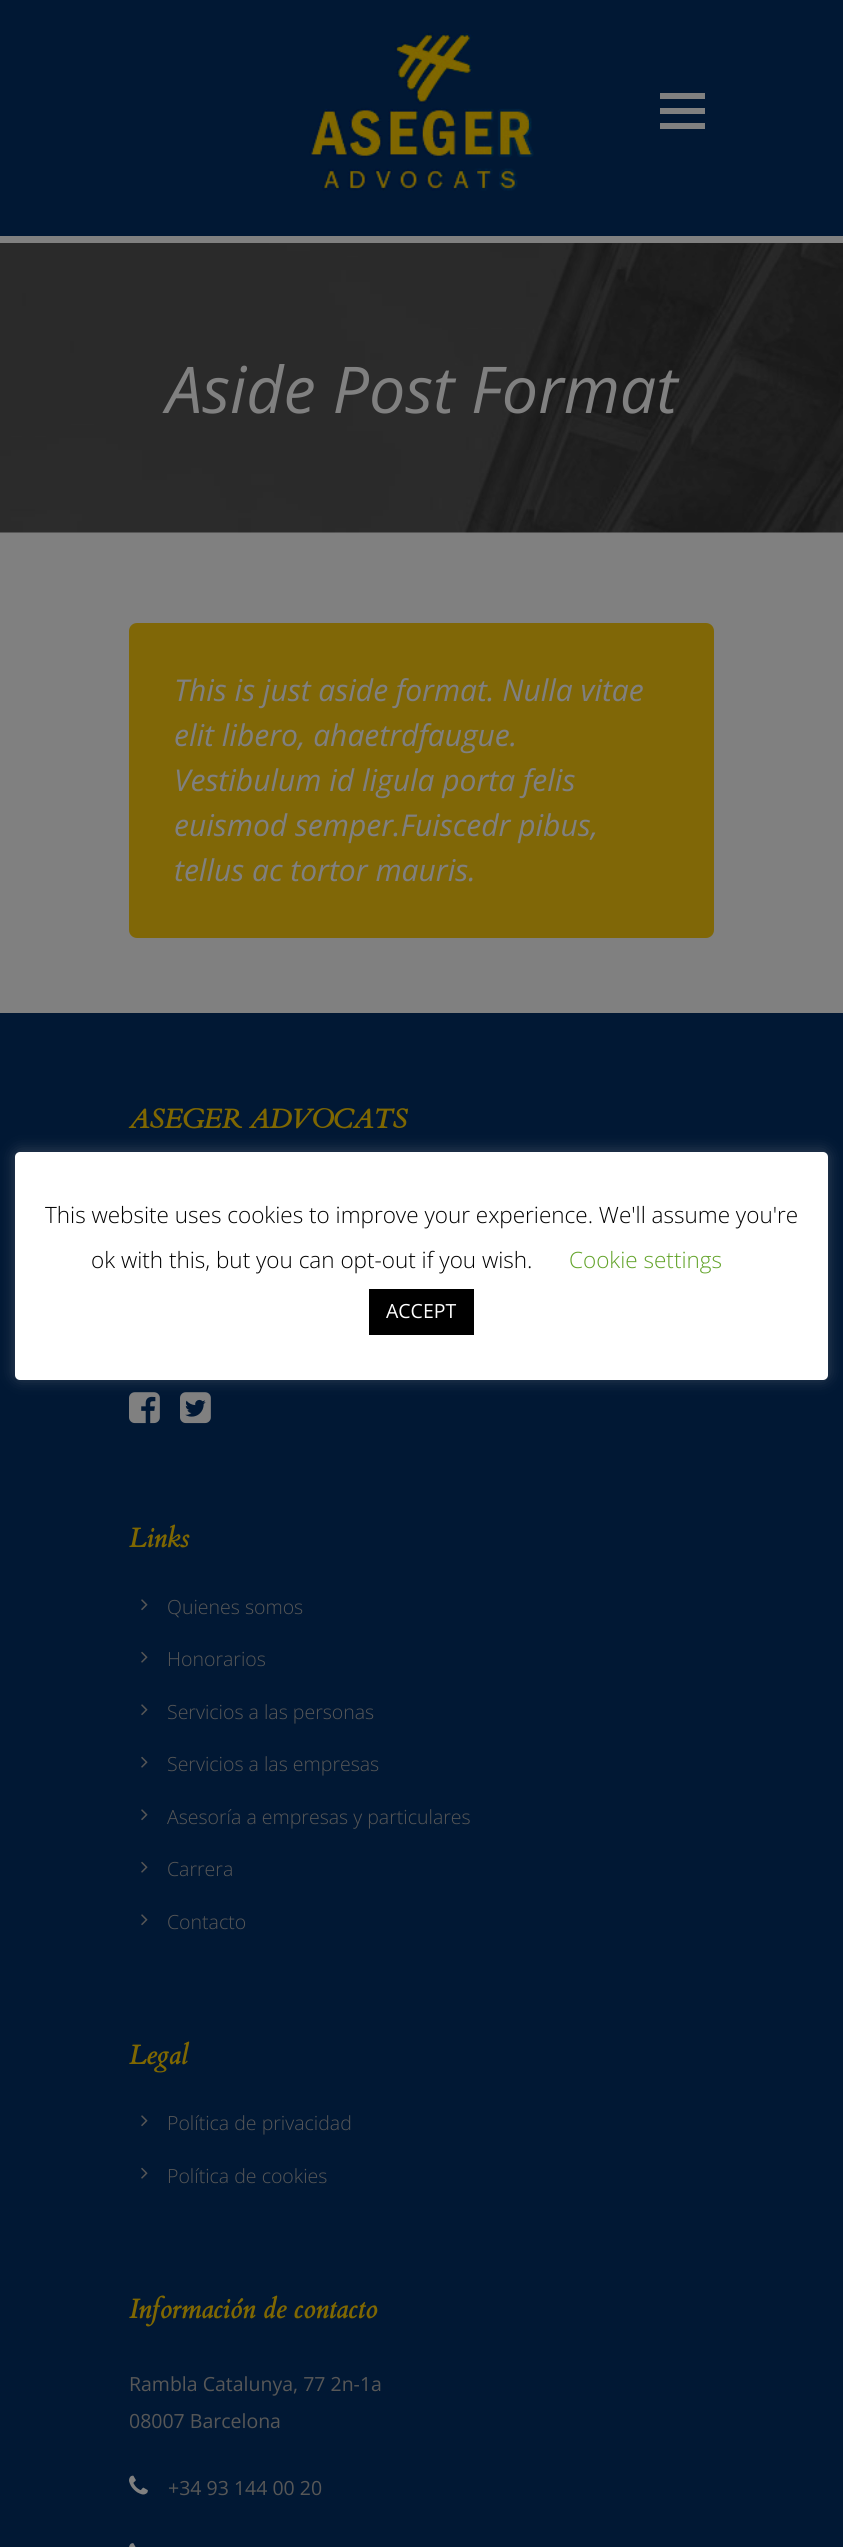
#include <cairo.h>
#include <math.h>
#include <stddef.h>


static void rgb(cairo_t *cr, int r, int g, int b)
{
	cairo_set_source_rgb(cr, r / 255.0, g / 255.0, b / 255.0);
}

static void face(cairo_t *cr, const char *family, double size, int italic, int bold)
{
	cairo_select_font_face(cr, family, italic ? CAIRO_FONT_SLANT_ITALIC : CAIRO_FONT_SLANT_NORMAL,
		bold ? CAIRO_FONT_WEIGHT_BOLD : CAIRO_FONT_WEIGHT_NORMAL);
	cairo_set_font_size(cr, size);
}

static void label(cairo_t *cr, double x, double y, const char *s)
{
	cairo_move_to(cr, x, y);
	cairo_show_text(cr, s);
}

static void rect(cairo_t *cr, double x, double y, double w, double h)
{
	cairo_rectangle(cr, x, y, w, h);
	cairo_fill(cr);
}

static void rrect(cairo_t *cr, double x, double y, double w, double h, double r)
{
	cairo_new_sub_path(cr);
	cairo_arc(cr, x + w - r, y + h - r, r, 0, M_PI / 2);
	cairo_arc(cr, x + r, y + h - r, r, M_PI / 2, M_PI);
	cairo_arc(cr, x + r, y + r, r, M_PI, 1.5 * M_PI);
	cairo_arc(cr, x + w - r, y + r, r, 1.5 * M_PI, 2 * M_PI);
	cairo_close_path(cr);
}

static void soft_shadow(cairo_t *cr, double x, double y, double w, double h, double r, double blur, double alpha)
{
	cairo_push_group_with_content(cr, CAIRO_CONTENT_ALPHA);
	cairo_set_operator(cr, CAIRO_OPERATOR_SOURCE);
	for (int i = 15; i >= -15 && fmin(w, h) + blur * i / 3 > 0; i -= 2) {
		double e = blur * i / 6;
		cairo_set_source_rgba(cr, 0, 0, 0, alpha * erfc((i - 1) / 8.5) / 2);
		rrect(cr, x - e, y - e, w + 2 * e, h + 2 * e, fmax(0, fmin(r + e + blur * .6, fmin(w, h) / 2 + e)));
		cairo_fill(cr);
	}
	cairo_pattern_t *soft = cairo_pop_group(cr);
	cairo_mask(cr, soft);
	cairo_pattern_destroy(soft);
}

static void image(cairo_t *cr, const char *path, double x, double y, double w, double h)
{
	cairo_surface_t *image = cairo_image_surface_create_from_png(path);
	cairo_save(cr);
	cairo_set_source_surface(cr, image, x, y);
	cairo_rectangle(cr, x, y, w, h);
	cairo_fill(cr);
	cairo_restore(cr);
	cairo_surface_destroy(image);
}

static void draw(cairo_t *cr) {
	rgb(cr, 128, 128, 128);
	cairo_paint(cr);
	rgb(cr, 1, 24, 52);
	rect(cr, 0, 0, 843, 236);
	image(cr, "image0.png", 309, 32, 225, 159);
	rgb(cr, 128, 128, 128);
	rect(cr, 660, 123, 45, 6);
	rect(cr, 660, 108, 45, 6);
	rect(cr, 660, 93, 45, 6);
	image(cr, "image1.png", 0, 243, 843, 290);
	face(cr, "Open Sans", 64.5, 1, 0);
	label(cr, 166, 413, "Aside Post Format");
	rgb(cr, 128, 103, 7);
	rrect(cr, 129, 623, 585, 315, 8);
	cairo_fill(cr);
	face(cr, "Open Sans", 30, 1, 0);
	rgb(cr, 128, 128, 128);
	label(cr, 174, 701, "This is just aside format. Nulla vitae");
	label(cr, 174, 746, "elit libero, ahaetrdfaugue.");
	label(cr, 174, 791, "Vestibulum id ligula porta felis");
	label(cr, 174, 836, "euismod semper.Fuiscedr pibus,");
	label(cr, 174, 881, "tellus ac tortor mauris.");
	rgb(cr, 1, 24, 52);
	rect(cr, 0, 1013, 843, 1534);
	face(cr, "Cardo", 27, 1, 1);
	rgb(cr, 127, 103, 1);
	label(cr, 129, 1128, "ASEGER ADVOCATS");
	image(cr, "image2.png", 129, 1392, 31, 32);
	image(cr, "image3.png", 180, 1392, 31, 32);
	label(cr, 129, 1547, "Links");
	image(cr, "image4.png", 141, 1599, 7, 12);
	face(cr, "Open Sans Light", 19.5, 0, 0);
	rgb(cr, 87, 87, 87);
	label(cr, 167, 1614, "Quienes somos");
	image(cr, "image5.png", 141, 1651, 7, 12);
	label(cr, 167, 1666, "Honorarios");
	image(cr, "image4.png", 141, 1704, 7, 12);
	label(cr, 167, 1719, "Servicios a las personas");
	image(cr, "image5.png", 141, 1756, 7, 12);
	label(cr, 167, 1771, "Servicios a las empresas");
	image(cr, "image4.png", 141, 1809, 7, 12);
	label(cr, 167, 1824, "Asesoría a empresas y particulares");
	image(cr, "image5.png", 141, 1861, 7, 12);
	label(cr, 167, 1876, "Carrera");
	image(cr, "image4.png", 141, 1914, 7, 12);
	label(cr, 167, 1929, "Contacto");
	face(cr, "Cardo", 27, 1, 1);
	rgb(cr, 127, 103, 1);
	label(cr, 129, 2064, "Legal");
	image(cr, "image4.png", 141, 2115, 7, 12);
	face(cr, "Open Sans Light", 19.5, 0, 0);
	rgb(cr, 87, 87, 87);
	label(cr, 167, 2130, "Política de privacidad");
	image(cr, "image5.png", 141, 2167, 7, 12);
	label(cr, 167, 2183, "Política de cookies");
	face(cr, "Cardo", 27, 1, 1);
	rgb(cr, 127, 103, 1);
	label(cr, 129, 2318, "Información de contacto");
	face(cr, "Open Sans", 19.5, 0, 0);
	rgb(cr, 87, 87, 87);
	label(cr, 129, 2391, "Rambla Catalunya, 77 2n-1a");
	label(cr, 129, 2428, "08007 Barcelona");
	image(cr, "image6.png", 129, 2475, 19, 20);
	label(cr, 168, 2495, "+34 93 144 00 20");
	image(cr, "image7.png", 129, 2543, 7, 4);
	rgb(cr, 172, 171, 171);
	soft_shadow(cr, 15, 1151, 813, 228, 5, 7.5, 0.3);
	rgb(cr, 255, 255, 255);
	rrect(cr, 15, 1152, 813, 228, 5);
	cairo_fill(cr);
	face(cr, "Open Sans Light", 22.5, 0, 0);
	rgb(cr, 0, 0, 0);
	label(cr, 45, 1223, "This website uses cookies to improve your experience. We'll assume you're");
	label(cr, 91, 1268, "ok with this, but you can opt-out if you wish.");
	rgb(cr, 98, 163, 41);
	label(cr, 569, 1268, "Cookie settings");
	rgb(cr, 0, 0, 0);
	rect(cr, 369, 1289, 105, 46);
	face(cr, "Open Sans", 19.5, 0, 0);
	rgb(cr, 255, 255, 255);
	label(cr, 386, 1318, "ACCEPT");
}

int main(void) {
	cairo_surface_t *surface = cairo_image_surface_create(CAIRO_FORMAT_RGB24, 843, 2547);
	cairo_t *cr = cairo_create(surface);
	cairo_font_options_t *options = cairo_font_options_create();
	cairo_font_options_set_hint_metrics(options, CAIRO_HINT_METRICS_OFF);
	cairo_font_options_set_hint_style(options, CAIRO_HINT_STYLE_NONE);
	cairo_set_font_options(cr, options);
	cairo_set_miter_limit(cr, 4);
	draw(cr);
	cairo_surface_write_to_png(surface, "render.png");
	cairo_font_options_destroy(options);
	cairo_destroy(cr);
	cairo_surface_destroy(surface);
	return 0;
}
